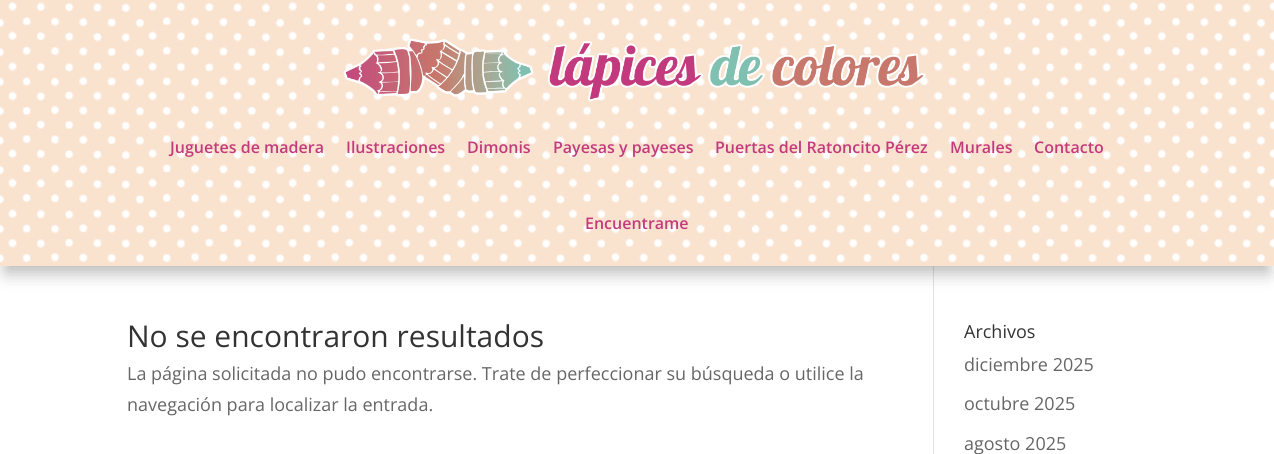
#include <cairo.h>
#include <math.h>
#include <stddef.h>


static void rgb(cairo_t *cr, int r, int g, int b)
{
	cairo_set_source_rgb(cr, r / 255.0, g / 255.0, b / 255.0);
}

static void face(cairo_t *cr, const char *family, double size, int italic, int bold)
{
	cairo_select_font_face(cr, family, italic ? CAIRO_FONT_SLANT_ITALIC : CAIRO_FONT_SLANT_NORMAL,
		bold ? CAIRO_FONT_WEIGHT_BOLD : CAIRO_FONT_WEIGHT_NORMAL);
	cairo_set_font_size(cr, size);
}

static void label(cairo_t *cr, double x, double y, const char *s)
{
	cairo_move_to(cr, x, y);
	cairo_show_text(cr, s);
}

static void rect(cairo_t *cr, double x, double y, double w, double h)
{
	cairo_rectangle(cr, x, y, w, h);
	cairo_fill(cr);
}

static void rrect(cairo_t *cr, double x, double y, double w, double h, double r)
{
	cairo_new_sub_path(cr);
	cairo_arc(cr, x + w - r, y + h - r, r, 0, M_PI / 2);
	cairo_arc(cr, x + r, y + h - r, r, M_PI / 2, M_PI);
	cairo_arc(cr, x + r, y + r, r, M_PI, 1.5 * M_PI);
	cairo_arc(cr, x + w - r, y + r, r, 1.5 * M_PI, 2 * M_PI);
	cairo_close_path(cr);
}

static void soft_shadow(cairo_t *cr, double x, double y, double w, double h, double r, double blur, double alpha)
{
	cairo_push_group_with_content(cr, CAIRO_CONTENT_ALPHA);
	cairo_set_operator(cr, CAIRO_OPERATOR_SOURCE);
	for (int i = 15; i >= -15 && fmin(w, h) + blur * i / 3 > 0; i -= 2) {
		double e = blur * i / 6;
		cairo_set_source_rgba(cr, 0, 0, 0, alpha * erfc((i - 1) / 8.5) / 2);
		rrect(cr, x - e, y - e, w + 2 * e, h + 2 * e, fmax(0, fmin(r + e + blur * .6, fmin(w, h) / 2 + e)));
		cairo_fill(cr);
	}
	cairo_pattern_t *soft = cairo_pop_group(cr);
	cairo_mask(cr, soft);
	cairo_pattern_destroy(soft);
}

static void image(cairo_t *cr, const char *path, double x, double y, double w, double h)
{
	cairo_surface_t *image = cairo_image_surface_create_from_png(path);
	cairo_save(cr);
	cairo_set_source_surface(cr, image, x, y);
	cairo_rectangle(cr, x, y, w, h);
	cairo_fill(cr);
	cairo_restore(cr);
	cairo_surface_destroy(image);
}

static void draw(cairo_t *cr) {
	rgb(cr, 255, 255, 255);
	cairo_paint(cr);
	rgb(cr, 226, 226, 226);
	rect(cr, 933, 266, 1, 188);
	rgb(cr, 0, 0, 0);
	soft_shadow(cr, 6, 18, 1262, 254, 0, 9, 0.3);
	image(cr, "image0.png", 0, 0, 1274, 266);
	image(cr, "image1.png", 343, 38, 583, 64);
	face(cr, "Open Sans SemiBold", 16, 0, 0);
	rgb(cr, 195, 58, 125);
	label(cr, 170, 153, "Juguetes de madera");
	label(cr, 346, 153, "Ilustraciones");
	label(cr, 467, 153, "Dimonis");
	label(cr, 553, 153, "Payesas y payeses");
	label(cr, 715, 153, "Puertas del Ratoncito Pérez");
	label(cr, 950, 153, "Murales");
	label(cr, 1034, 153, "Contacto");
	label(cr, 585, 229, "Encuentrame");
	face(cr, "Open Sans", 30, 0, 0);
	rgb(cr, 51, 51, 51);
	label(cr, 127, 347, "No se encontraron resultados");
	face(cr, "Open Sans", 18, 0, 0);
	rgb(cr, 102, 102, 102);
	label(cr, 127, 380, "La página solicitada no pudo encontrarse. Trate de perfeccionar su búsqueda o utilice la");
	label(cr, 127, 411, "navegación para localizar la entrada.");
	rgb(cr, 51, 51, 51);
	label(cr, 964, 338, "Archivos");
	rgb(cr, 102, 102, 102);
	label(cr, 964, 371, "diciembre 2025");
	label(cr, 964, 410, "octubre 2025");
	label(cr, 964, 450, "agosto 2025");
}

int main(void) {
	cairo_surface_t *surface = cairo_image_surface_create(CAIRO_FORMAT_RGB24, 1274, 454);
	cairo_t *cr = cairo_create(surface);
	cairo_font_options_t *options = cairo_font_options_create();
	cairo_font_options_set_hint_metrics(options, CAIRO_HINT_METRICS_OFF);
	cairo_font_options_set_hint_style(options, CAIRO_HINT_STYLE_NONE);
	cairo_set_font_options(cr, options);
	cairo_set_miter_limit(cr, 4);
	draw(cr);
	cairo_surface_write_to_png(surface, "render.png");
	cairo_font_options_destroy(options);
	cairo_destroy(cr);
	cairo_surface_destroy(surface);
	return 0;
}
